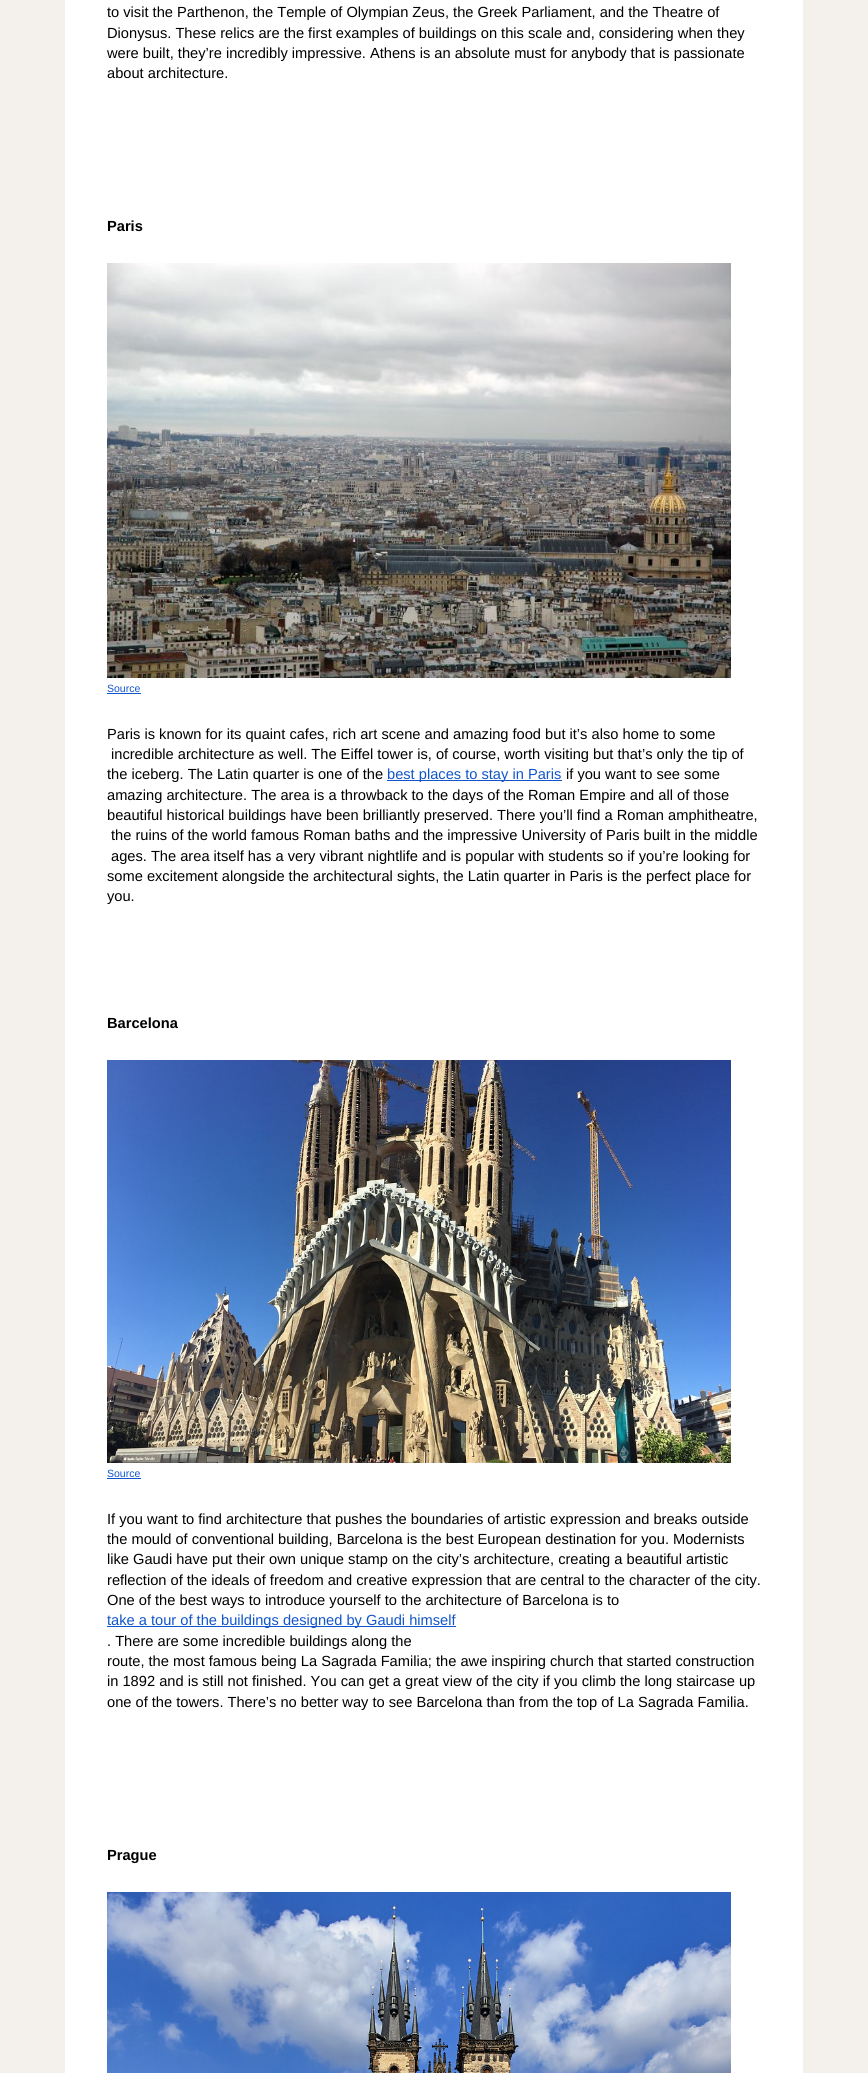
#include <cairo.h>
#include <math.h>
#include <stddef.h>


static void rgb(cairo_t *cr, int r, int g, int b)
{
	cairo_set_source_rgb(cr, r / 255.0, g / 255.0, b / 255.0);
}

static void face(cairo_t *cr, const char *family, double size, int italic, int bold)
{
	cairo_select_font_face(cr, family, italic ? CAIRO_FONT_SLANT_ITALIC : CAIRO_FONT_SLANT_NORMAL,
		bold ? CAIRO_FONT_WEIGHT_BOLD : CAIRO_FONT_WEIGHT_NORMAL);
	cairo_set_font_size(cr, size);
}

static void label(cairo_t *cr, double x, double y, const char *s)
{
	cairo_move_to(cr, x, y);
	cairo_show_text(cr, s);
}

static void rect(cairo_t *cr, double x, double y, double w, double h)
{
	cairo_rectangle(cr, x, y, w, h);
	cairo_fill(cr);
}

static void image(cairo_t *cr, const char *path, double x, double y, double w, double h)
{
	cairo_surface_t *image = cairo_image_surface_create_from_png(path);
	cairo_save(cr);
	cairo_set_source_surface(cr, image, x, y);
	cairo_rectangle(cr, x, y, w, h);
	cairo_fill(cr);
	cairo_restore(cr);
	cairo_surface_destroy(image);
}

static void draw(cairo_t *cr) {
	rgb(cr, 244, 241, 236);
	cairo_paint(cr);
	rgb(cr, 255, 255, 255);
	rect(cr, 65, 0, 738, 2073);
	face(cr, "Liberation Sans", 14.65, 0, 0);
	rgb(cr, 0, 0, 0);
	label(cr, 107, 17, "to visit the Parthenon, the Temple of Olympian Zeus, the Greek Parliament, and the Theatre of");
	label(cr, 107, 38, "Dionysus. These relics are the first examples of buildings on this scale and, considering when they");
	label(cr, 107, 58, "were built, they’re incredibly impressive. Athens is an absolute must for anybody that is passionate");
	label(cr, 107, 78, "about architecture.");
	face(cr, "Liberation Sans", 14.65, 0, 1);
	label(cr, 107, 231, "Paris");
	image(cr, "image0.png", 107, 263, 624, 415);
	face(cr, "Liberation Sans", 10.5, 0, 0);
	rgb(cr, 17, 85, 204);
	label(cr, 107, 692, "Source");
	rect(cr, 107, 693, 34, 1);
	face(cr, "Liberation Sans", 14.65, 0, 0);
	rgb(cr, 0, 0, 0);
	label(cr, 107, 739, "Paris is known for its quaint cafes, rich art scene and amazing food but it’s also home to some");
	label(cr, 111, 759, "incredible architecture as well. The Eiffel tower is, of course, worth visiting but that’s only the tip of");
	label(cr, 107, 779, "the iceberg. The Latin quarter is one of the");
	rgb(cr, 17, 85, 204);
	rect(cr, 387, 780, 175, 1);
	label(cr, 387, 779, "best places to stay in Paris");
	rgb(cr, 0, 0, 0);
	label(cr, 566, 779, "if you want to see some");
	label(cr, 107, 800, "amazing architecture. The area is a throwback to the days of the Roman Empire and all of those");
	label(cr, 107, 820, "beautiful historical buildings have been brilliantly preserved. There you’ll find a Roman amphitheatre,");
	label(cr, 111, 840, "the ruins of the world famous Roman baths and the impressive University of Paris built in the middle");
	label(cr, 111, 861, "ages. The area itself has a very vibrant nightlife and is popular with students so if you’re looking for");
	label(cr, 107, 881, "some excitement alongside the architectural sights, the Latin quarter in Paris is the perfect place for");
	label(cr, 107, 901, "you.");
	face(cr, "Liberation Sans", 14.65, 0, 1);
	label(cr, 107, 1028, "Barcelona");
	image(cr, "image1.png", 107, 1060, 624, 403);
	face(cr, "Liberation Sans", 10.5, 0, 0);
	rgb(cr, 17, 85, 204);
	label(cr, 107, 1477, "Source");
	rect(cr, 107, 1478, 34, 1);
	face(cr, "Liberation Sans", 14.65, 0, 0);
	rgb(cr, 0, 0, 0);
	label(cr, 107, 1524, "If you want to find architecture that pushes the boundaries of artistic expression and breaks outside");
	label(cr, 107, 1544, "the mould of conventional building, Barcelona is the best European destination for you. Modernists");
	label(cr, 107, 1564, "like Gaudi have put their own unique stamp on the city’s architecture, creating a beautiful artistic");
	label(cr, 107, 1585, "reflection of the ideals of freedom and creative expression that are central to the character of the city.");
	label(cr, 107, 1605, "One of the best ways to introduce yourself to the architecture of Barcelona is to");
	rgb(cr, 17, 85, 204);
	rect(cr, 107, 1626, 349, 1);
	label(cr, 107, 1625, "take a tour of the buildings designed by Gaudi himself");
	rgb(cr, 0, 0, 0);
	label(cr, 107, 1646, ". There are some incredible buildings along the");
	label(cr, 107, 1666, "route, the most famous being La Sagrada Familia; the awe inspiring church that started construction");
	label(cr, 107, 1686, "in 1892 and is still not finished. You can get a great view of the city if you climb the long staircase up");
	label(cr, 107, 1707, "one of the towers. There’s no better way to see Barcelona than from the top of La Sagrada Familia.");
	face(cr, "Liberation Sans", 14.65, 0, 1);
	label(cr, 107, 1860, "Prague");
	image(cr, "image2.png", 107, 1892, 624, 181);
}

int main(void) {
	cairo_surface_t *surface = cairo_image_surface_create(CAIRO_FORMAT_RGB24, 868, 2073);
	cairo_t *cr = cairo_create(surface);
	cairo_font_options_t *options = cairo_font_options_create();
	cairo_font_options_set_hint_metrics(options, CAIRO_HINT_METRICS_OFF);
	cairo_font_options_set_hint_style(options, CAIRO_HINT_STYLE_NONE);
	cairo_set_font_options(cr, options);
	cairo_set_miter_limit(cr, 4);
	draw(cr);
	cairo_surface_write_to_png(surface, "render.png");
	cairo_font_options_destroy(options);
	cairo_destroy(cr);
	cairo_surface_destroy(surface);
	return 0;
}
